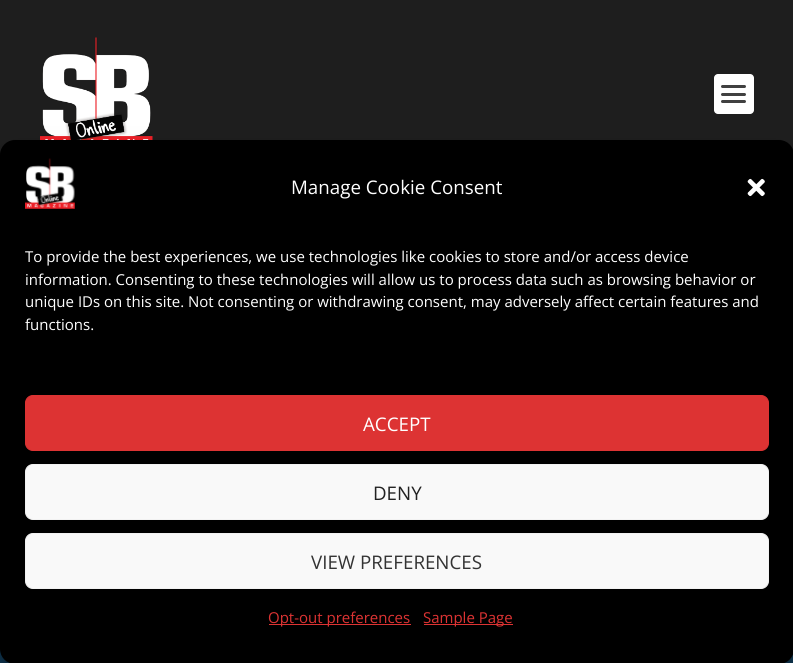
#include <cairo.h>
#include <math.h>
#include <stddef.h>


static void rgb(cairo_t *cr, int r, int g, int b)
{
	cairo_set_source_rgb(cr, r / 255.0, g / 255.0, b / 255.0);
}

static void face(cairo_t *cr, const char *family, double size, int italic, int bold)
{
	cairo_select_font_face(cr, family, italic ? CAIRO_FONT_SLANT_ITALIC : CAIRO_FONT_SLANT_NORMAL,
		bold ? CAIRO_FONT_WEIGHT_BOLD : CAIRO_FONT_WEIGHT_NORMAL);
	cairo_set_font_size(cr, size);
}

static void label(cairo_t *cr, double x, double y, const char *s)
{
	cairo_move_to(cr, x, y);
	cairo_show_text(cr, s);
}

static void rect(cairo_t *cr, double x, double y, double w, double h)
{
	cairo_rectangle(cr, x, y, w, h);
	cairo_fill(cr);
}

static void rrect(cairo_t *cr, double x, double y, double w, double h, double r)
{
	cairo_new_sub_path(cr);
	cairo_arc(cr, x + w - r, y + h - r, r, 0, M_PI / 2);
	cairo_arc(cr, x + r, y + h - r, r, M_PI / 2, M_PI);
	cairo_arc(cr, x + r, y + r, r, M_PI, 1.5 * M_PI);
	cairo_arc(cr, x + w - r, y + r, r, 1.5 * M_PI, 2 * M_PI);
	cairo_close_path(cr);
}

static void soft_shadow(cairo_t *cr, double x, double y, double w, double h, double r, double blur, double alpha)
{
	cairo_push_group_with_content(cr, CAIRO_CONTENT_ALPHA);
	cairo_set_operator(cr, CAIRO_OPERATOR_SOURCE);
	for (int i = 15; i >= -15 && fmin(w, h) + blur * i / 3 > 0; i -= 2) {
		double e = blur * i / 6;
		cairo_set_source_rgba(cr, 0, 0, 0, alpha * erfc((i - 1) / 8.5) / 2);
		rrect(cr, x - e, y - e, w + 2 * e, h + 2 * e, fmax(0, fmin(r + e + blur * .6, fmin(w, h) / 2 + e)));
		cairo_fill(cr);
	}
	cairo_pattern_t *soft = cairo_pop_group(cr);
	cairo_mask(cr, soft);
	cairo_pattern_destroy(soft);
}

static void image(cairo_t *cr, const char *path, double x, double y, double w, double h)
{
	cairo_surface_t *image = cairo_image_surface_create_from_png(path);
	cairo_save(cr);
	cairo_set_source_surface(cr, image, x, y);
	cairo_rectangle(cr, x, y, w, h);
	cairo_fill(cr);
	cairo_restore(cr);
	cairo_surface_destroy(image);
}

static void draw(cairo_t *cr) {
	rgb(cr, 255, 255, 255);
	cairo_paint(cr);
	image(cr, "image0.png", 0, 649, 793, 14);
	rgb(cr, 30, 30, 30);
	rect(cr, 0, 0, 793, 155);
	image(cr, "image1.png", 40, 37, 113, 103);
	rgb(cr, 255, 255, 255);
	rrect(cr, 714, 74, 40, 40, 4);
	cairo_fill(cr);
	rgb(cr, 64, 64, 64);
	rrect(cr, 721, 85, 25, 3, 1.5);
	cairo_fill(cr);
	rrect(cr, 721, 93, 25, 3, 1.5);
	cairo_fill(cr);
	rrect(cr, 721, 100, 25, 3, 1.5);
	cairo_fill(cr);
	rgb(cr, 0, 0, 0);
	soft_shadow(cr, 0, 148, 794, 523, 15, 4, 0.23);
	soft_shadow(cr, 0, 153, 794, 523, 15, 12.5, 0.19);
	rgb(cr, 0, 0, 0);
	rrect(cr, 0, 140, 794, 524, 15);
	cairo_fill(cr);
	image(cr, "image2.png", 25, 158, 50, 51);
	face(cr, "Open Sans", 18.75, 0, 0);
	rgb(cr, 255, 255, 255);
	label(cr, 291, 194, "Manage Cookie Consent");
	image(cr, "image3.png", 747, 178, 18, 19);
	face(cr, "Open Sans", 15, 0, 0);
	label(cr, 25, 262, "To provide the best experiences, we use technologies like cookies to store and/or access device");
	label(cr, 25, 285, "information. Consenting to these technologies will allow us to process data such as browsing behavior or");
	label(cr, 25, 307, "unique IDs on this site. Not consenting or withdrawing consent, may adversely affect certain features and");
	label(cr, 25, 330, "functions.");
	rgb(cr, 221, 51, 51);
	rrect(cr, 25.5, 395.5, 743, 55, 7.5);
	cairo_fill_preserve(cr);
	cairo_set_line_width(cr, 1);
	cairo_stroke(cr);
	face(cr, "Open Sans", 18.75, 0, 0);
	rgb(cr, 255, 255, 255);
	label(cr, 363, 431, "ACCEPT");
	rgb(cr, 249, 249, 249);
	rrect(cr, 25.5, 464.5, 743, 55, 7.5);
	cairo_fill_preserve(cr);
	rgb(cr, 242, 242, 242);
	cairo_stroke(cr);
	rgb(cr, 34, 34, 34);
	label(cr, 373, 500, "DENY");
	rgb(cr, 249, 249, 249);
	rrect(cr, 25.5, 533.5, 743, 55, 7.5);
	cairo_fill_preserve(cr);
	rgb(cr, 242, 242, 242);
	cairo_stroke(cr);
	rgb(cr, 51, 51, 51);
	label(cr, 311, 569, "VIEW PREFERENCES");
	rgb(cr, 221, 51, 51);
	rect(cr, 269, 624, 142, 1);
	face(cr, "Open Sans", 15, 0, 0);
	label(cr, 268, 623, "Opt-out preferences");
	rect(cr, 424, 624, 89, 1);
	label(cr, 423, 623, "Sample Page");
}

int main(void) {
	cairo_surface_t *surface = cairo_image_surface_create(CAIRO_FORMAT_RGB24, 793, 663);
	cairo_t *cr = cairo_create(surface);
	cairo_font_options_t *options = cairo_font_options_create();
	cairo_font_options_set_hint_metrics(options, CAIRO_HINT_METRICS_OFF);
	cairo_font_options_set_hint_style(options, CAIRO_HINT_STYLE_NONE);
	cairo_set_font_options(cr, options);
	cairo_set_miter_limit(cr, 4);
	draw(cr);
	cairo_surface_write_to_png(surface, "render.png");
	cairo_font_options_destroy(options);
	cairo_destroy(cr);
	cairo_surface_destroy(surface);
	return 0;
}
